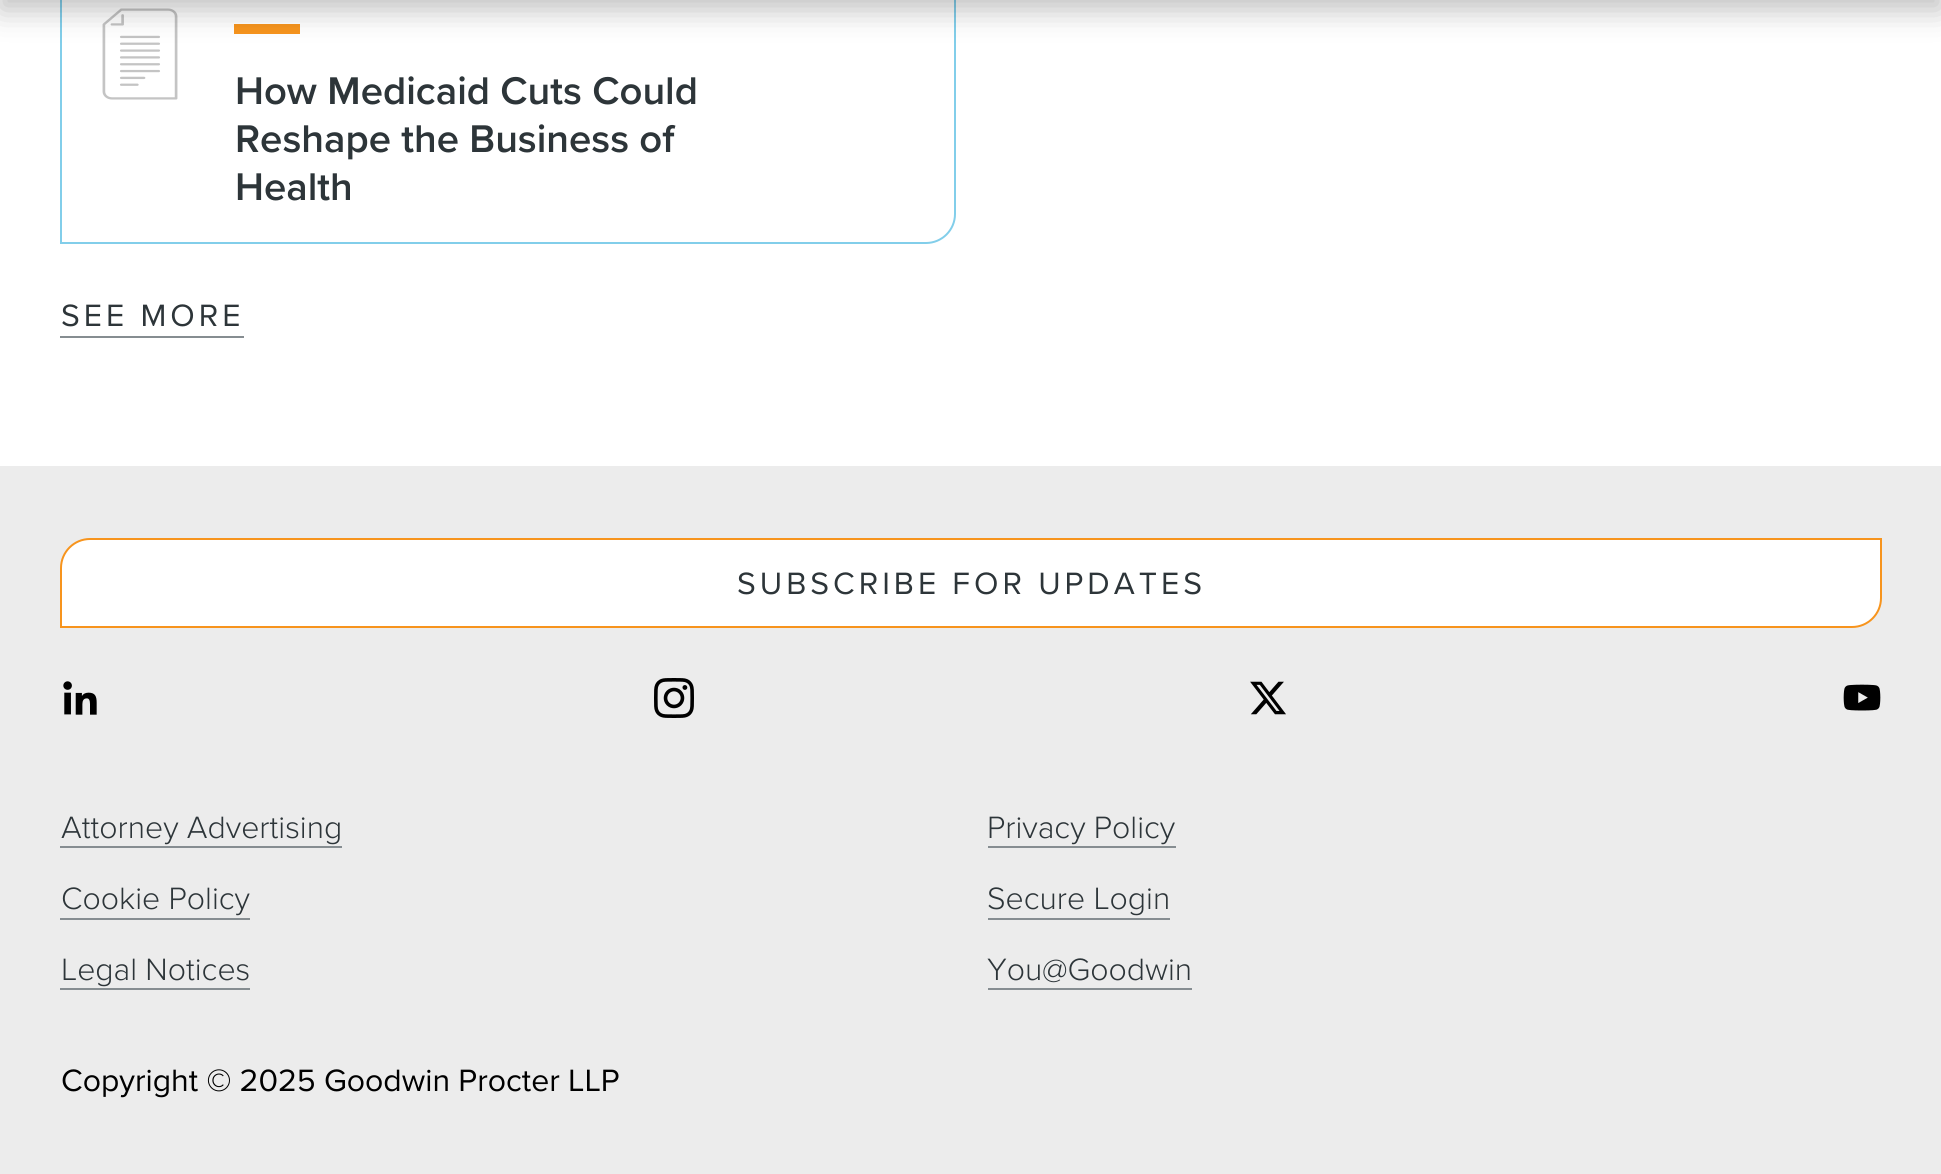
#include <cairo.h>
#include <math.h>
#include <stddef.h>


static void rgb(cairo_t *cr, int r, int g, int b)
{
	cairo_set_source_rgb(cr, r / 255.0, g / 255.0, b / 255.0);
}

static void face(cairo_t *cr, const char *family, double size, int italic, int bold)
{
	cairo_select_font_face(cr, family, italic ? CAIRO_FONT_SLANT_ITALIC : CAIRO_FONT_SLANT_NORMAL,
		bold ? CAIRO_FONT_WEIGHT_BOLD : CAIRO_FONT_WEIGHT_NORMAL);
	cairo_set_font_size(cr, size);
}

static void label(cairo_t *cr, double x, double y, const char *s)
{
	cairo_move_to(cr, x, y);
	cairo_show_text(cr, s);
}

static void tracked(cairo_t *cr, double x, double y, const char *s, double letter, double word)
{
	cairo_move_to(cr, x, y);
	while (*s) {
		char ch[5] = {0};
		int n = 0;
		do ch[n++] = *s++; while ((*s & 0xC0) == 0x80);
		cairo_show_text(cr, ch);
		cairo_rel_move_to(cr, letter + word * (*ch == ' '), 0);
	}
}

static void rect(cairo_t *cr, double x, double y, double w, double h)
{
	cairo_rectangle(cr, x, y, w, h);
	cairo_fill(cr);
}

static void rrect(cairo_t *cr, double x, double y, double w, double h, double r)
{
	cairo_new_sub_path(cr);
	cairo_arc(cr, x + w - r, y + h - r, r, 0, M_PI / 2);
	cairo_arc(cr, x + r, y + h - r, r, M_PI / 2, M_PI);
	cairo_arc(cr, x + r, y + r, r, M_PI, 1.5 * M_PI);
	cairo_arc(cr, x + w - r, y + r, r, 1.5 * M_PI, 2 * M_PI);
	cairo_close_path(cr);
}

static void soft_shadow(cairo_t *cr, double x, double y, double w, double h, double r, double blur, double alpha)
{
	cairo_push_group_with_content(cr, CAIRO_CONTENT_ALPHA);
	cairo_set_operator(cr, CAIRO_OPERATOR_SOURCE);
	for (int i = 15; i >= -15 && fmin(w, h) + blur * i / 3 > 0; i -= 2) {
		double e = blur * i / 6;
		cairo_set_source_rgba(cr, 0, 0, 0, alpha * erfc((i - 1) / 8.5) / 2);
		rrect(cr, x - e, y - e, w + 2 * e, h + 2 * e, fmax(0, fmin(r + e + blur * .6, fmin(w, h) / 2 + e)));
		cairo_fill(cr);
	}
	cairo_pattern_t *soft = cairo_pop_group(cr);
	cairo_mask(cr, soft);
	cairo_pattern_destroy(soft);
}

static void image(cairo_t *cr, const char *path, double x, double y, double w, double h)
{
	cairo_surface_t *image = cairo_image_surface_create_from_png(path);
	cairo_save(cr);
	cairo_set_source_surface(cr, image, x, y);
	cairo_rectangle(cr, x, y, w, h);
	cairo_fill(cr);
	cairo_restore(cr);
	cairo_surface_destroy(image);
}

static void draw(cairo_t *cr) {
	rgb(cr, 236, 236, 236);
	cairo_paint(cr);
	rgb(cr, 255, 255, 255);
	rect(cr, 0, 0, 1941, 466);
	cairo_new_path(cr);
	cairo_move_to(cr, 90, -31);
	cairo_line_to(cr, 955, -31);
	cairo_line_to(cr, 955, 214);
	cairo_curve_to(cr, 955, 230, 942, 243, 926, 243);
	cairo_line_to(cr, 61, 243);
	cairo_line_to(cr, 61, -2);
	cairo_curve_to(cr, 61, -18, 74, -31, 90, -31);
	cairo_close_path(cr);
	rgb(cr, 130, 206, 234);
	cairo_stroke(cr);
	image(cr, "image0.png", 102, 8, 76, 92);
	rgb(cr, 247, 148, 29);
	rect(cr, 234, 24, 66, 10);
	rgb(cr, 0, 0, 0);
	soft_shadow(cr, 0, -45, 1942, 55, 0, 15, 0.25);
	face(cr, "Proxima Nova SemiBold", 40, 0, 0);
	rgb(cr, 45, 53, 57);
	label(cr, 235, 104, "How Medicaid Cuts Could");
	label(cr, 235, 152, "Reshape the Business of");
	label(cr, 235, 200, "Health");
	face(cr, "Proxima Nova", 32, 0, 0);
	tracked(cr, 61, 326, "SEE MORE", 4, 0);
	rgb(cr, 134, 141, 145);
	rect(cr, 60, 336, 184, 2);
	rgb(cr, 255, 255, 255);
	cairo_new_path(cr);
	cairo_move_to(cr, 90, 539);
	cairo_line_to(cr, 1881, 539);
	cairo_line_to(cr, 1881, 598);
	cairo_curve_to(cr, 1881, 614, 1868, 627, 1852, 627);
	cairo_line_to(cr, 61, 627);
	cairo_line_to(cr, 61, 568);
	cairo_curve_to(cr, 61, 552, 74, 539, 90, 539);
	cairo_close_path(cr);
	cairo_fill_preserve(cr);
	rgb(cr, 247, 148, 29);
	cairo_stroke(cr);
	rgb(cr, 45, 53, 57);
	tracked(cr, 737, 594, "SUBSCRIBE FOR UPDATES", 4, 0);
	face(cr, "Proxima Nova Light", 32, 0, 0);
	label(cr, 61, 838, "Attorney Advertising");
	rgb(cr, 134, 141, 145);
	rect(cr, 60, 846, 282, 2);
	rgb(cr, 45, 53, 57);
	label(cr, 61, 909, "Cookie Policy");
	rgb(cr, 134, 141, 145);
	rect(cr, 60, 918, 190, 2);
	rgb(cr, 45, 53, 57);
	label(cr, 61, 980, "Legal Notices");
	rgb(cr, 134, 141, 145);
	rect(cr, 60, 988, 190, 2);
	rgb(cr, 45, 53, 57);
	label(cr, 987, 838, "Privacy Policy");
	rgb(cr, 134, 141, 145);
	rect(cr, 988, 846, 188, 2);
	rgb(cr, 45, 53, 57);
	label(cr, 987, 909, "Secure Login");
	rgb(cr, 134, 141, 145);
	rect(cr, 988, 918, 182, 2);
	rgb(cr, 45, 53, 57);
	label(cr, 987, 980, "You@Goodwin");
	rgb(cr, 134, 141, 145);
	rect(cr, 988, 988, 204, 2);
	image(cr, "image1.png", 63, 681, 34, 34);
	image(cr, "image2.png", 654, 678, 40, 40);
	image(cr, "image3.png", 1250, 681, 36, 34);
	image(cr, "image4.png", 1843, 684, 38, 27);
	face(cr, "Proxima Nova", 32, 0, 0);
	rgb(cr, 0, 0, 0);
	label(cr, 61, 1091, "Copyright © 2025 Goodwin Procter LLP");
}

int main(void) {
	cairo_surface_t *surface = cairo_image_surface_create(CAIRO_FORMAT_RGB24, 1941, 1174);
	cairo_t *cr = cairo_create(surface);
	cairo_font_options_t *options = cairo_font_options_create();
	cairo_font_options_set_hint_metrics(options, CAIRO_HINT_METRICS_OFF);
	cairo_font_options_set_hint_style(options, CAIRO_HINT_STYLE_NONE);
	cairo_set_font_options(cr, options);
	cairo_set_miter_limit(cr, 4);
	draw(cr);
	cairo_surface_write_to_png(surface, "render.png");
	cairo_font_options_destroy(options);
	cairo_destroy(cr);
	cairo_surface_destroy(surface);
	return 0;
}
